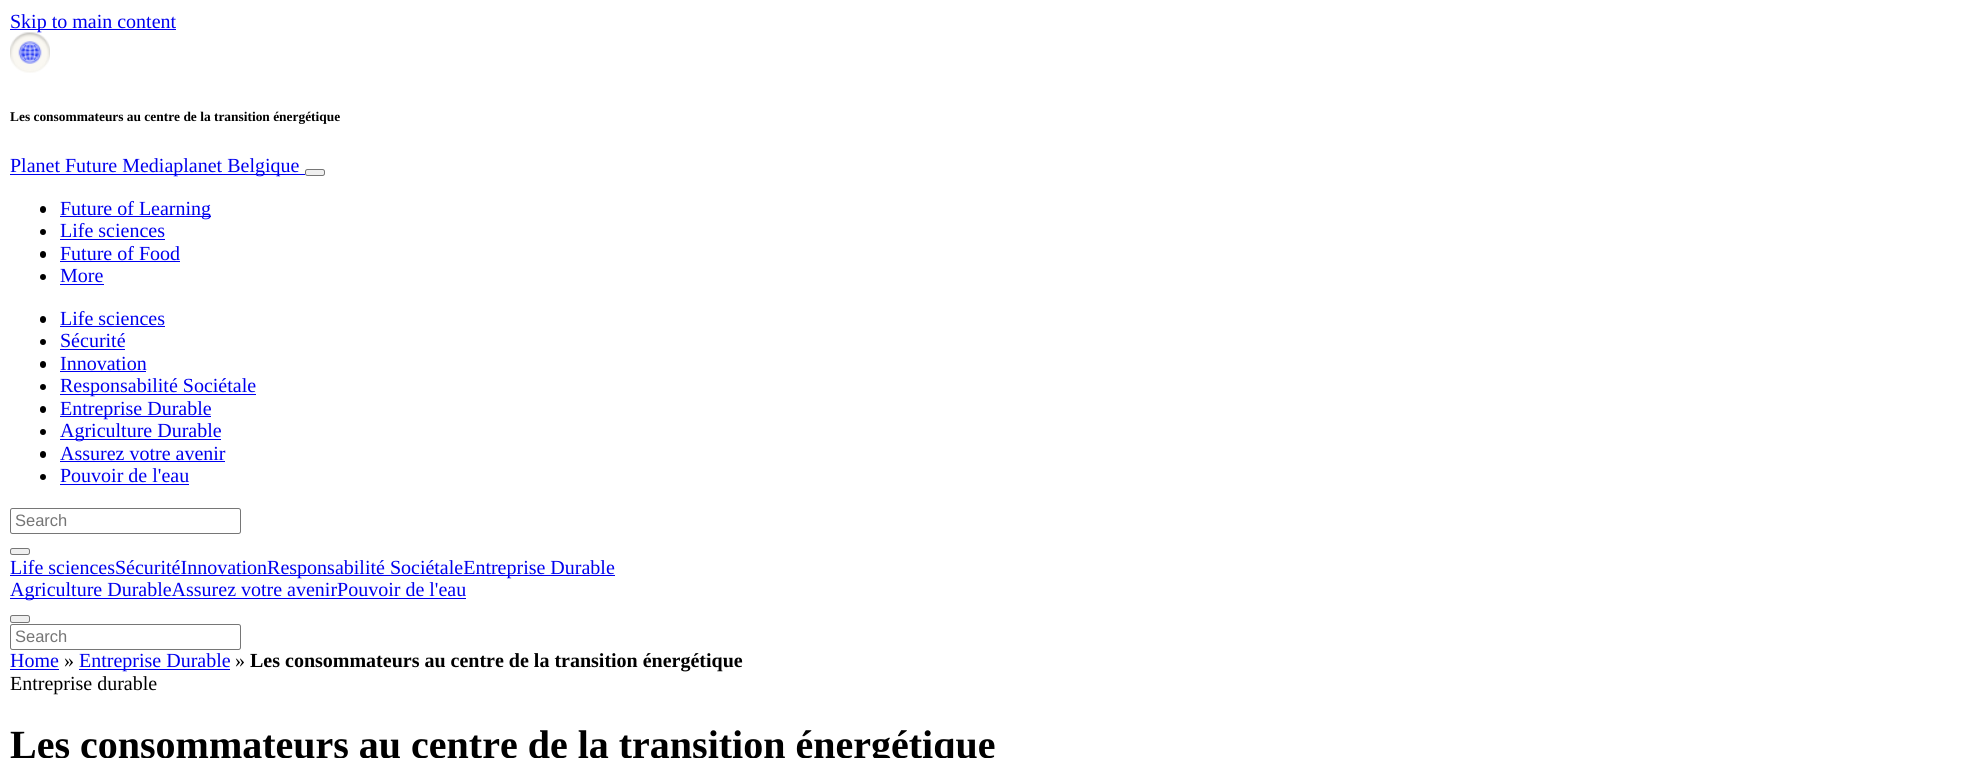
#include <cairo.h>
#include <math.h>
#include <stddef.h>


static void rgb(cairo_t *cr, int r, int g, int b)
{
	cairo_set_source_rgb(cr, r / 255.0, g / 255.0, b / 255.0);
}

static void face(cairo_t *cr, const char *family, double size, int italic, int bold)
{
	cairo_select_font_face(cr, family, italic ? CAIRO_FONT_SLANT_ITALIC : CAIRO_FONT_SLANT_NORMAL,
		bold ? CAIRO_FONT_WEIGHT_BOLD : CAIRO_FONT_WEIGHT_NORMAL);
	cairo_set_font_size(cr, size);
}

static void label(cairo_t *cr, double x, double y, const char *s)
{
	cairo_move_to(cr, x, y);
	cairo_show_text(cr, s);
}

static void rect(cairo_t *cr, double x, double y, double w, double h)
{
	cairo_rectangle(cr, x, y, w, h);
	cairo_fill(cr);
}

static void rrect(cairo_t *cr, double x, double y, double w, double h, double r)
{
	cairo_new_sub_path(cr);
	cairo_arc(cr, x + w - r, y + h - r, r, 0, M_PI / 2);
	cairo_arc(cr, x + r, y + h - r, r, M_PI / 2, M_PI);
	cairo_arc(cr, x + r, y + r, r, M_PI, 1.5 * M_PI);
	cairo_arc(cr, x + w - r, y + r, r, 1.5 * M_PI, 2 * M_PI);
	cairo_close_path(cr);
}

static void image(cairo_t *cr, const char *path, double x, double y, double w, double h)
{
	cairo_surface_t *image = cairo_image_surface_create_from_png(path);
	cairo_save(cr);
	cairo_set_source_surface(cr, image, x, y);
	cairo_rectangle(cr, x, y, w, h);
	cairo_fill(cr);
	cairo_restore(cr);
	cairo_surface_destroy(image);
}

static void draw(cairo_t *cr) {
	rgb(cr, 255, 255, 255);
	cairo_paint(cr);
	rgb(cr, 0, 0, 238);
	rect(cr, 10, 29, 166, 1);
	face(cr, "Liberation Serif", 20, 0, 0);
	label(cr, 10, 28, "Skip to main content");
	image(cr, "image0.png", 10, 32, 40, 41);
	face(cr, "Liberation Serif", 13.4, 0, 1);
	rgb(cr, 0, 0, 0);
	label(cr, 10, 121, "Les consommateurs au centre de la transition énergétique");
	rgb(cr, 0, 0, 238);
	rect(cr, 10, 174, 295, 1);
	face(cr, "Liberation Serif", 20, 0, 0);
	label(cr, 10, 172, "Planet Future Mediaplanet Belgique");
	rgb(cr, 239, 239, 239);
	rrect(cr, 305.5, 169.5, 19, 6, 2);
	cairo_fill_preserve(cr);
	rgb(cr, 118, 118, 118);
	cairo_set_line_width(cr, 1);
	cairo_stroke(cr);
	rgb(cr, 0, 0, 0);
	rrect(cr, 40, 206, 6, 7, 3);
	cairo_fill(cr);
	rgb(cr, 0, 0, 238);
	rect(cr, 60, 216, 151, 1);
	label(cr, 60, 215, "Future of Learning");
	rgb(cr, 0, 0, 0);
	cairo_new_path(cr);
	cairo_arc(cr, 43, 232, 3, 0, 2 * M_PI);
	cairo_fill(cr);
	rgb(cr, 0, 0, 238);
	label(cr, 60, 237, "Life sciences");
	rect(cr, 60, 239, 105, 1);
	rgb(cr, 0, 0, 0);
	rrect(cr, 40, 251, 6, 7, 3);
	cairo_fill(cr);
	rgb(cr, 0, 0, 238);
	label(cr, 60, 260, "Future of Food");
	rect(cr, 60, 261, 120, 1);
	rgb(cr, 0, 0, 0);
	cairo_new_path(cr);
	cairo_arc(cr, 43, 277, 3, 0, 2 * M_PI);
	cairo_fill(cr);
	rgb(cr, 0, 0, 238);
	label(cr, 60, 282, "More");
	rect(cr, 60, 284, 44, 1);
	rgb(cr, 0, 0, 0);
	rrect(cr, 40, 316, 6, 7, 3);
	cairo_fill(cr);
	rgb(cr, 0, 0, 238);
	label(cr, 60, 325, "Life sciences");
	rect(cr, 60, 326, 105, 1);
	rgb(cr, 0, 0, 0);
	cairo_new_path(cr);
	cairo_arc(cr, 43, 342, 3, 0, 2 * M_PI);
	cairo_fill(cr);
	rgb(cr, 0, 0, 238);
	label(cr, 60, 347, "Sécurité");
	rect(cr, 60, 349, 65, 1);
	rgb(cr, 0, 0, 0);
	rrect(cr, 40, 361, 6, 7, 3);
	cairo_fill(cr);
	rgb(cr, 0, 0, 238);
	label(cr, 60, 370, "Innovation");
	rect(cr, 60, 371, 86, 1);
	rgb(cr, 0, 0, 0);
	cairo_new_path(cr);
	cairo_arc(cr, 43, 387, 3, 0, 2 * M_PI);
	cairo_fill(cr);
	rgb(cr, 0, 0, 238);
	rect(cr, 60, 394, 196, 1);
	label(cr, 60, 392, "Responsabilité Sociétale");
	rgb(cr, 0, 0, 0);
	rrect(cr, 40, 406, 6, 7, 3);
	cairo_fill(cr);
	rgb(cr, 0, 0, 238);
	rect(cr, 60, 416, 151, 1);
	label(cr, 60, 415, "Entreprise Durable");
	rgb(cr, 0, 0, 0);
	cairo_new_path(cr);
	cairo_arc(cr, 43, 432, 3, 0, 2 * M_PI);
	cairo_fill(cr);
	rgb(cr, 0, 0, 238);
	rect(cr, 60, 439, 161, 1);
	label(cr, 60, 437, "Agriculture Durable");
	rgb(cr, 0, 0, 0);
	rrect(cr, 40, 451, 6, 7, 3);
	cairo_fill(cr);
	rgb(cr, 0, 0, 238);
	label(cr, 60, 460, "Assurez votre avenir");
	rect(cr, 60, 461, 165, 1);
	rgb(cr, 0, 0, 0);
	cairo_new_path(cr);
	cairo_arc(cr, 43, 477, 3, 0, 2 * M_PI);
	cairo_fill(cr);
	rgb(cr, 0, 0, 238);
	label(cr, 60, 482, "Pouvoir de l'eau");
	rect(cr, 60, 484, 129, 1);
	rrect(cr, 10.5, 508.5, 230, 25, 2);
	rgb(cr, 118, 118, 118);
	cairo_stroke(cr);
	face(cr, "Liberation Sans", 16.5, 0, 0);
	rgb(cr, 117, 117, 117);
	label(cr, 15, 526, "Search");
	rgb(cr, 239, 239, 239);
	rrect(cr, 10.5, 548.5, 19, 6, 2);
	cairo_fill_preserve(cr);
	rgb(cr, 118, 118, 118);
	cairo_stroke(cr);
	rgb(cr, 0, 0, 238);
	rect(cr, 10, 575, 605, 1);
	face(cr, "Liberation Serif", 20, 0, 0);
	label(cr, 10, 574, "Life sciencesSécuritéInnovationResponsabilité SociétaleEntreprise Durable");
	rect(cr, 10, 598, 456, 1);
	label(cr, 10, 596, "Agriculture DurableAssurez votre avenirPouvoir de l'eau");
	rgb(cr, 239, 239, 239);
	rrect(cr, 10.5, 615.5, 19, 7, 2);
	cairo_fill_preserve(cr);
	rgb(cr, 118, 118, 118);
	cairo_stroke(cr);
	rrect(cr, 10.5, 624.5, 230, 25, 2);
	cairo_stroke(cr);
	face(cr, "Liberation Sans", 16.5, 0, 0);
	rgb(cr, 117, 117, 117);
	label(cr, 15, 642, "Search");
	face(cr, "Liberation Serif", 20, 0, 0);
	rgb(cr, 0, 0, 238);
	label(cr, 10, 667, "Home");
	rect(cr, 10, 669, 49, 1);
	rgb(cr, 0, 0, 0);
	label(cr, 64, 667, "»");
	rgb(cr, 0, 0, 238);
	rect(cr, 79, 669, 151, 1);
	label(cr, 79, 667, "Entreprise Durable");
	rgb(cr, 0, 0, 0);
	label(cr, 235, 667, "»");
	face(cr, "Liberation Serif", 20, 0, 1);
	label(cr, 250, 667, "Les consommateurs au centre de la transition énergétique");
	face(cr, "Liberation Serif", 20, 0, 0);
	label(cr, 10, 690, "Entreprise durable");
	face(cr, "Liberation Serif", 40, 0, 1);
	label(cr, 10, 758, "Les consommateurs au centre de la transition énergétique");
}

int main(void) {
	cairo_surface_t *surface = cairo_image_surface_create(CAIRO_FORMAT_RGB24, 1971, 758);
	cairo_t *cr = cairo_create(surface);
	cairo_font_options_t *options = cairo_font_options_create();
	cairo_font_options_set_hint_metrics(options, CAIRO_HINT_METRICS_OFF);
	cairo_font_options_set_hint_style(options, CAIRO_HINT_STYLE_NONE);
	cairo_set_font_options(cr, options);
	cairo_set_miter_limit(cr, 4);
	draw(cr);
	cairo_surface_write_to_png(surface, "render.png");
	cairo_font_options_destroy(options);
	cairo_destroy(cr);
	cairo_surface_destroy(surface);
	return 0;
}
